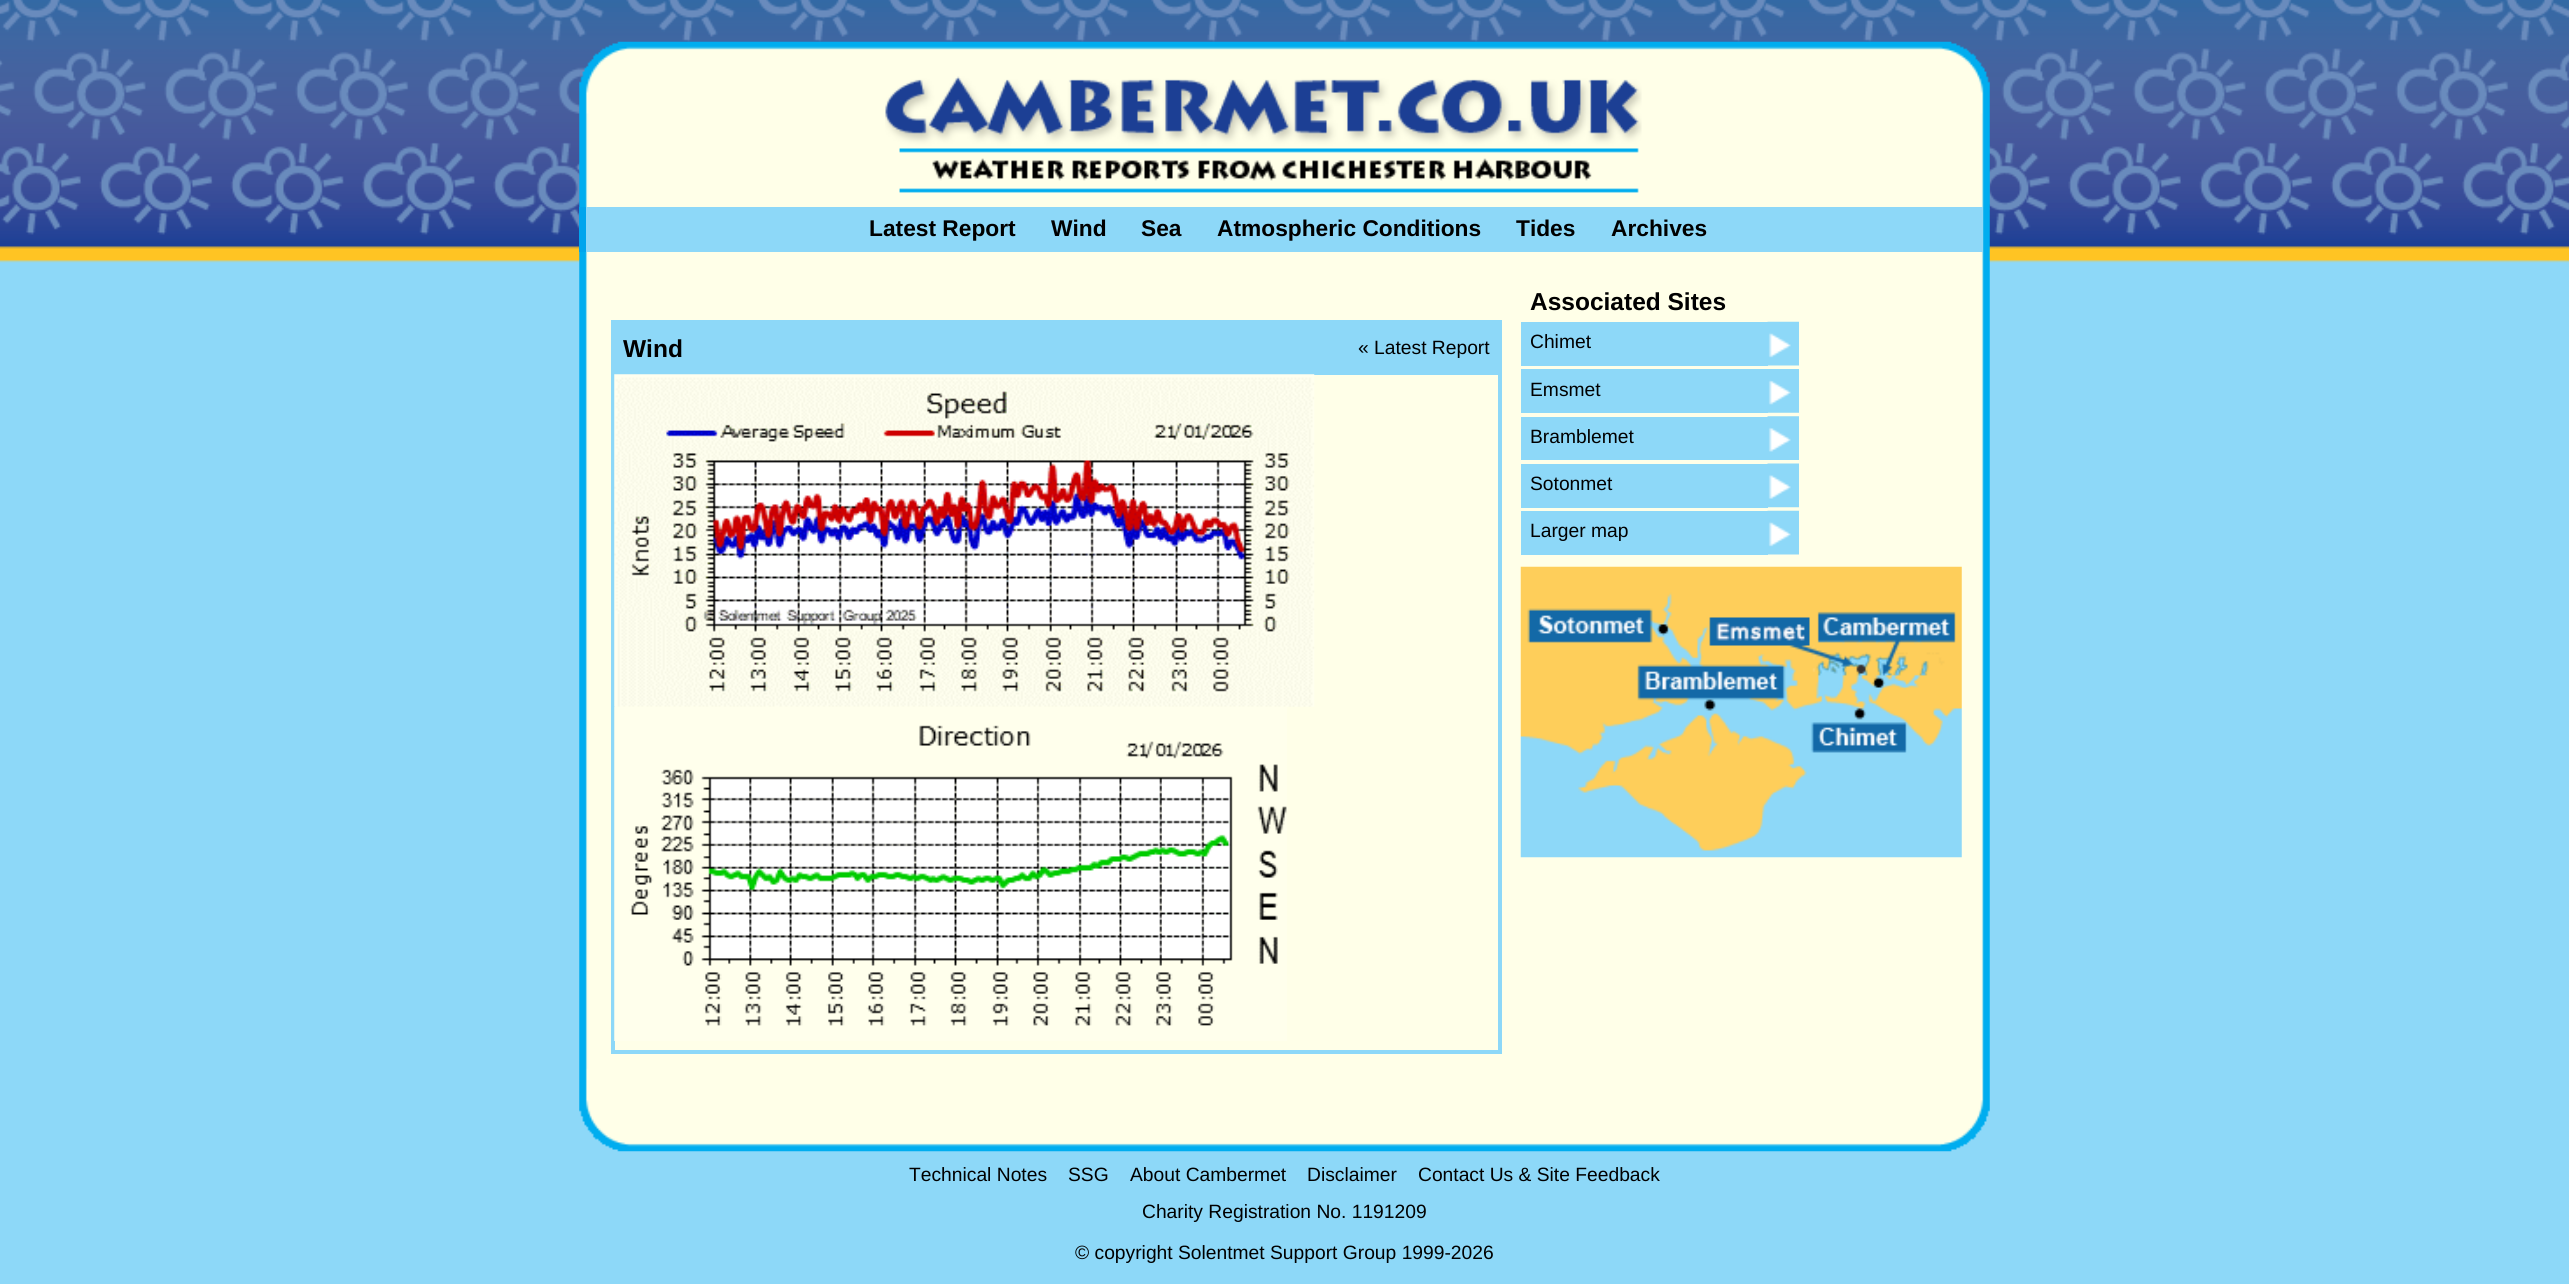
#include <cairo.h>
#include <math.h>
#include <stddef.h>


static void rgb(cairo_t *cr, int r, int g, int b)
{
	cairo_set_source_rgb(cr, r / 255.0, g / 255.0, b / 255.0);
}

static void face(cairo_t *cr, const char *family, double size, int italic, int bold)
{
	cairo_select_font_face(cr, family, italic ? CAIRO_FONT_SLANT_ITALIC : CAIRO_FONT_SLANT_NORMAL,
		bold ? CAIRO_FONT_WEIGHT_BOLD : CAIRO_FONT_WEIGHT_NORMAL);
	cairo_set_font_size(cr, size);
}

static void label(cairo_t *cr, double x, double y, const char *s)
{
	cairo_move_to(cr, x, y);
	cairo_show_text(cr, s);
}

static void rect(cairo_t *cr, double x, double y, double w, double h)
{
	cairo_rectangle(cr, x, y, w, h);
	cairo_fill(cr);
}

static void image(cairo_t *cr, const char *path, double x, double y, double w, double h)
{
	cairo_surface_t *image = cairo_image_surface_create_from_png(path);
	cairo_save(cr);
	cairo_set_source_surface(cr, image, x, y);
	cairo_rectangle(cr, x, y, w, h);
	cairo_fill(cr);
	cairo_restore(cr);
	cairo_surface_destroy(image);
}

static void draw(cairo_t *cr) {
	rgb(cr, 141, 216, 248);
	cairo_paint(cr);
	image(cr, "image0.png", 0, 0, 2569, 263);
	image(cr, "image1.png", 579, 41, 1411, 1111);
	image(cr, "image2.png", 885, 76, 757, 117);
	rgb(cr, 141, 216, 248);
	rect(cr, 586, 207, 1397, 45);
	rgb(cr, 0, 165, 237);
	rect(cr, 579, 207, 7, 45);
	face(cr, "Liberation Sans", 22.75, 0, 1);
	rgb(cr, 0, 0, 0);
	label(cr, 869, 236, "Latest Report");
	label(cr, 1051, 236, "Wind");
	label(cr, 1141, 236, "Sea");
	label(cr, 1217, 236, "Atmospheric Conditions");
	label(cr, 1516, 236, "Tides");
	label(cr, 1611, 236, "Archives");
	cairo_rectangle(cr, 613, 322, 887, 730);
	rgb(cr, 141, 216, 248);
	cairo_set_line_width(cr, 4);
	cairo_stroke(cr);
	rect(cr, 615, 324, 883, 51);
	face(cr, "Liberation Sans", 24.5, 0, 1);
	rgb(cr, 0, 0, 0);
	label(cr, 623, 357, "Wind");
	face(cr, "Liberation Sans", 19.25, 0, 0);
	label(cr, 1358, 354, "« Latest Report");
	image(cr, "image3.png", 614, 374, 701, 333);
	image(cr, "image4.png", 614, 706, 673, 335);
	face(cr, "Liberation Sans", 24.5, 0, 1);
	label(cr, 1530, 310, "Associated Sites");
	rgb(cr, 141, 216, 248);
	rect(cr, 1521, 322, 247, 44);
	face(cr, "Liberation Sans", 19.25, 0, 0);
	rgb(cr, 0, 0, 0);
	label(cr, 1530, 348, "Chimet");
	image(cr, "image5.png", 1767, 321, 32, 45);
	rgb(cr, 141, 216, 248);
	rect(cr, 1521, 369, 247, 44);
	rgb(cr, 0, 0, 0);
	label(cr, 1530, 396, "Emsmet");
	image(cr, "image6.png", 1768, 369, 31, 44);
	rgb(cr, 141, 216, 248);
	rect(cr, 1521, 417, 247, 43);
	rgb(cr, 0, 0, 0);
	label(cr, 1530, 443, "Bramblemet");
	image(cr, "image7.png", 1767, 416, 32, 44);
	rgb(cr, 141, 216, 248);
	rect(cr, 1521, 464, 247, 44);
	rgb(cr, 0, 0, 0);
	label(cr, 1530, 490, "Sotonmet");
	image(cr, "image8.png", 1767, 463, 32, 45);
	rgb(cr, 141, 216, 248);
	rect(cr, 1521, 511, 247, 44);
	rgb(cr, 0, 0, 0);
	label(cr, 1530, 537, "Larger map");
	image(cr, "image5.png", 1767, 510, 32, 45);
	image(cr, "image9.png", 1520, 566, 442, 292);
	label(cr, 909, 1181, "Technical Notes");
	label(cr, 1068, 1181, "SSG");
	label(cr, 1130, 1181, "About Cambermet");
	label(cr, 1307, 1181, "Disclaimer");
	label(cr, 1418, 1181, "Contact Us & Site Feedback");
	label(cr, 1142, 1218, "Charity Registration No. 1191209");
	label(cr, 1075, 1259, "© copyright Solentmet Support Group 1999-2026");
}

int main(void) {
	cairo_surface_t *surface = cairo_image_surface_create(CAIRO_FORMAT_RGB24, 2569, 1284);
	cairo_t *cr = cairo_create(surface);
	cairo_font_options_t *options = cairo_font_options_create();
	cairo_font_options_set_hint_metrics(options, CAIRO_HINT_METRICS_OFF);
	cairo_font_options_set_hint_style(options, CAIRO_HINT_STYLE_NONE);
	cairo_set_font_options(cr, options);
	cairo_set_miter_limit(cr, 4);
	draw(cr);
	cairo_surface_write_to_png(surface, "render.png");
	cairo_font_options_destroy(options);
	cairo_destroy(cr);
	cairo_surface_destroy(surface);
	return 0;
}
